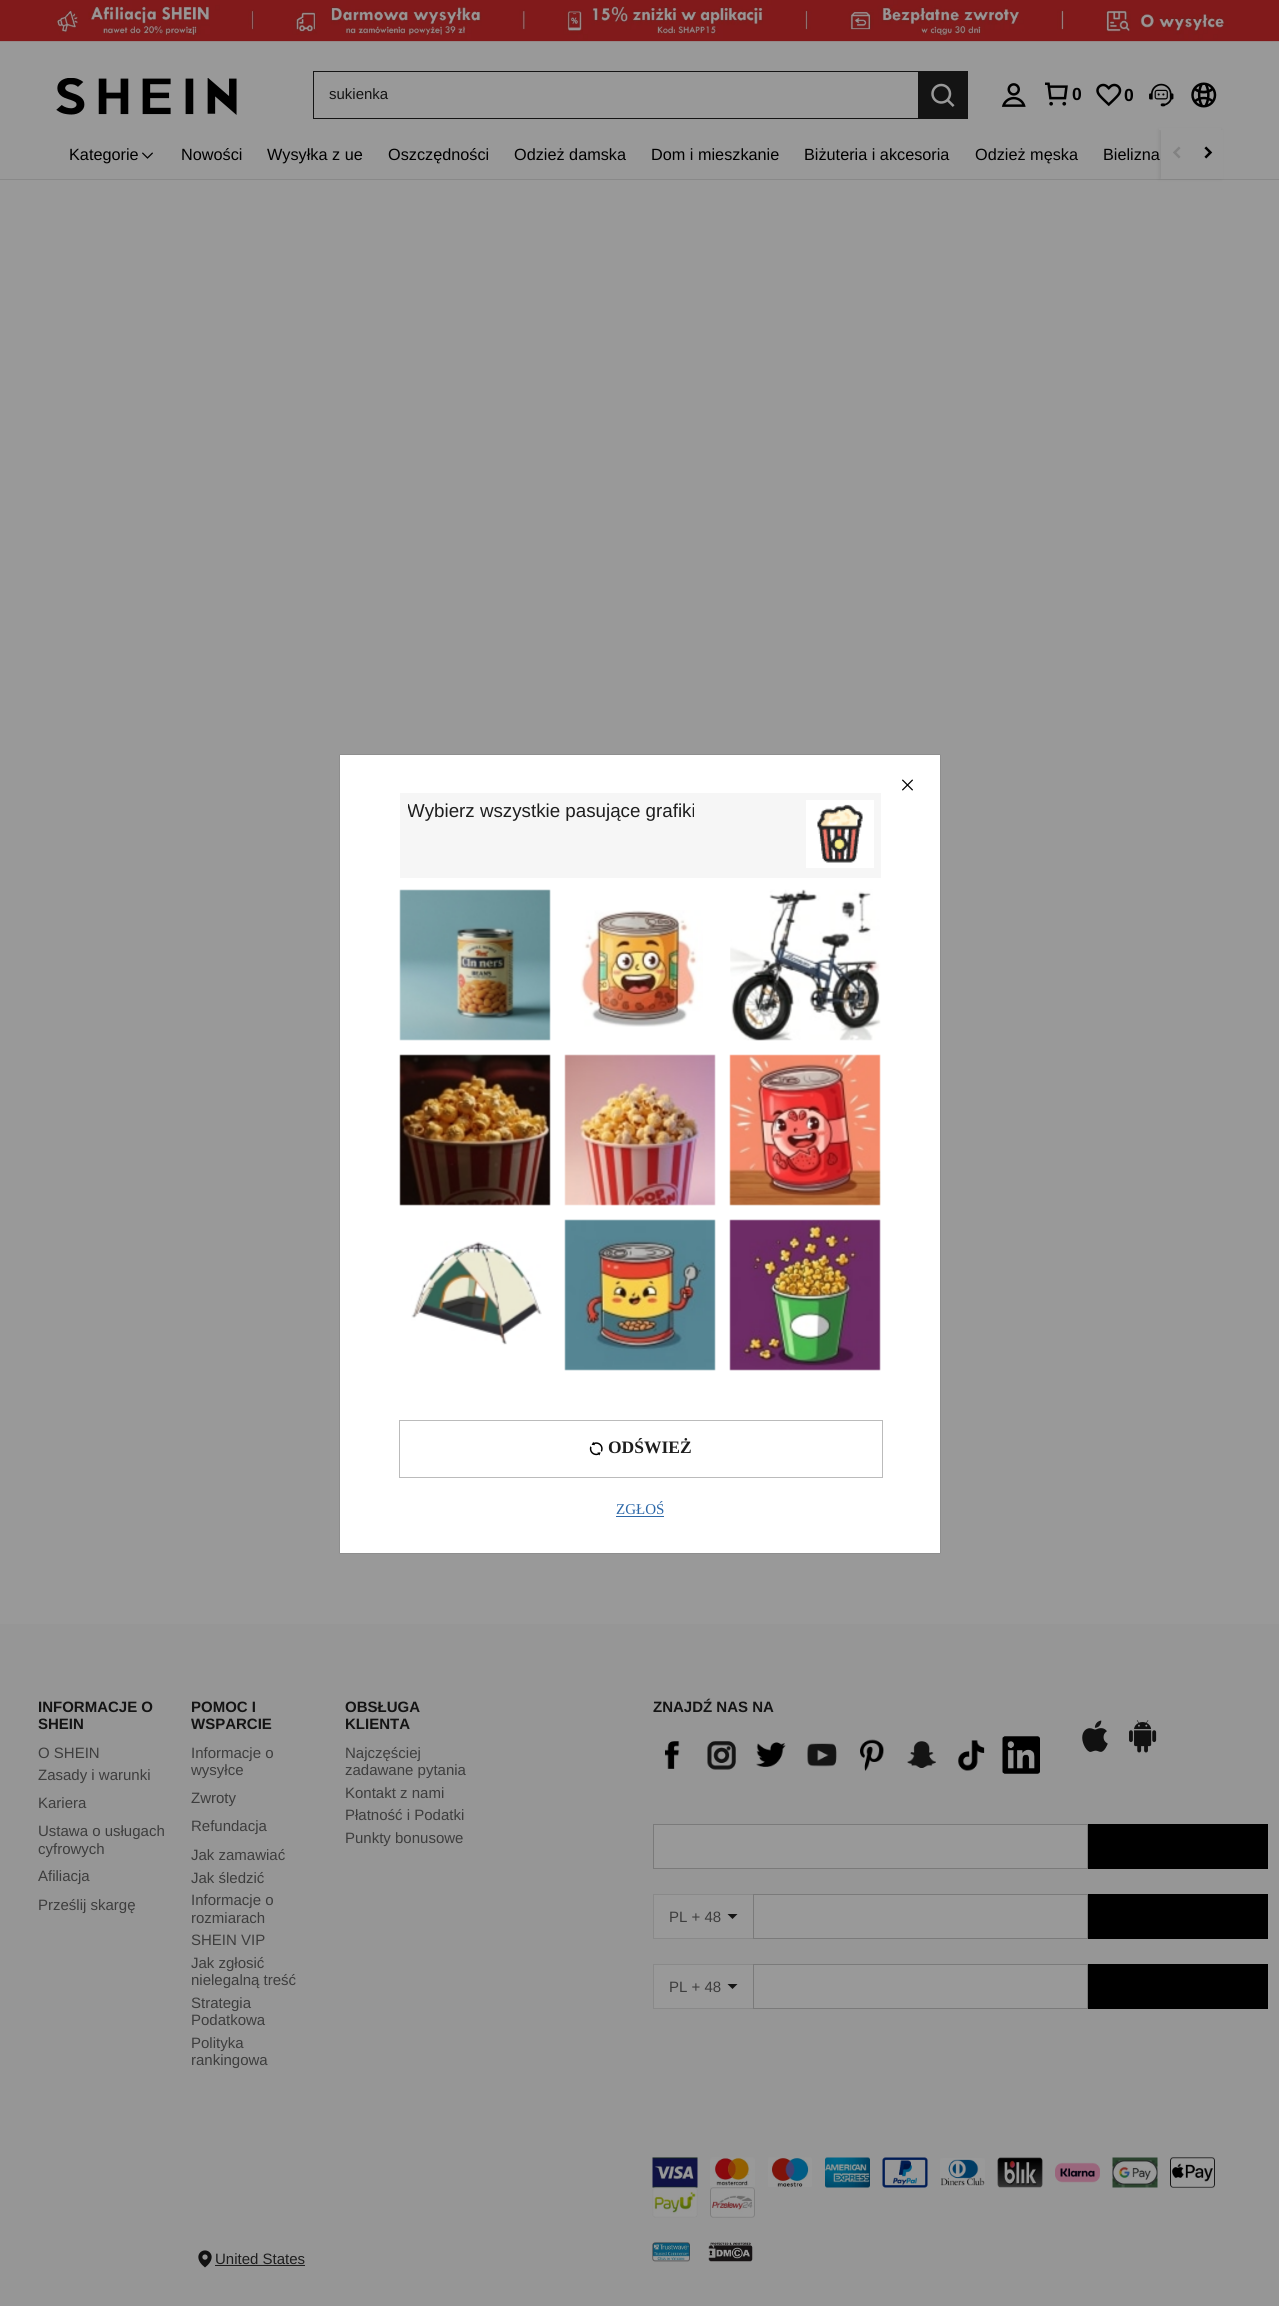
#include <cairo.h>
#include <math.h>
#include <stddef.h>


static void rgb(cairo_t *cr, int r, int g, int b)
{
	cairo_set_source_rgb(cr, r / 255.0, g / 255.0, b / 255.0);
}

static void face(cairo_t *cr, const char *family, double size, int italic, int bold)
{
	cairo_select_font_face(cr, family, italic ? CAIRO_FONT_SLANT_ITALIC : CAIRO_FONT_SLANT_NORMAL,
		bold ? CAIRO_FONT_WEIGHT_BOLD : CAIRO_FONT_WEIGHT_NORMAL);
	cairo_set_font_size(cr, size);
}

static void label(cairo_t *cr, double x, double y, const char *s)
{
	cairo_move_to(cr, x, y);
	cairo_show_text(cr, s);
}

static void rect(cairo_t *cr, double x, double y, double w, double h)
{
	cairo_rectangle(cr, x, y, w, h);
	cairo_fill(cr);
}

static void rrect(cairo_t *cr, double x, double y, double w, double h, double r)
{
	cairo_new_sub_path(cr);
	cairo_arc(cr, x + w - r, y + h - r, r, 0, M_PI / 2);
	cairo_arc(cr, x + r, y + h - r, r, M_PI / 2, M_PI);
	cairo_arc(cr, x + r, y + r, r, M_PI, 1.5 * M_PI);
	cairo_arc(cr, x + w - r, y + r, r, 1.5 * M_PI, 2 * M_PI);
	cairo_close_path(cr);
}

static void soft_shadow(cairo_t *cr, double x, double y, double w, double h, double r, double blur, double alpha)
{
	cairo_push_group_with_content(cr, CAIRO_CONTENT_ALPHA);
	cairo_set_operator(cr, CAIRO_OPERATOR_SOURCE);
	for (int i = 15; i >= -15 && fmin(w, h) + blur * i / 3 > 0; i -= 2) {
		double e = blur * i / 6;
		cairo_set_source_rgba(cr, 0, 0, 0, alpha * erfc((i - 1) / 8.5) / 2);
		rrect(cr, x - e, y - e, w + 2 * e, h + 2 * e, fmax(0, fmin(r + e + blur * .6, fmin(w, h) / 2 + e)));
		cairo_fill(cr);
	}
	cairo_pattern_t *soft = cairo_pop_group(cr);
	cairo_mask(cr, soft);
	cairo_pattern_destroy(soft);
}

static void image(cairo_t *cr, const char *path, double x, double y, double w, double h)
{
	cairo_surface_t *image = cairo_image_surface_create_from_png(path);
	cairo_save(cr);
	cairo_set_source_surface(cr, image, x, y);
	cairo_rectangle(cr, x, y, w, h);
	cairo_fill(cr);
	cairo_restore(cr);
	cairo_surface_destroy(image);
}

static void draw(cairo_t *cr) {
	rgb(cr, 153, 153, 153);
	cairo_paint(cr);
	image(cr, "image0.png", 0, 0, 1279, 42);
	rgb(cr, 137, 137, 137);
	rect(cr, 0, 179, 1279, 1);
	rgb(cr, 0, 0, 0);
	soft_shadow(cr, 1159, 130, 62, 49, 0, 2, 0.08);
	rgb(cr, 153, 153, 153);
	rect(cr, 1159, 128, 62, 2);
	image(cr, "image1.png", 56, 78, 181, 37);
	rgb(cr, 20, 20, 20);
	rect(cr, 313, 71, 605, 1);
	rect(cr, 313, 118, 605, 1);
	rect(cr, 313, 71, 1, 48);
	face(cr, "Liberation Sans", 15, 0, 0);
	label(cr, 329, 99, "sukienka");
	rect(cr, 918, 71, 50, 48);
	image(cr, "image2.png", 931, 83, 24, 24);
	image(cr, "image3.png", 1001, 83, 25, 24);
	image(cr, "image4.png", 1045, 82, 23, 24);
	face(cr, "Liberation Sans", 17.5, 0, 1);
	rgb(cr, 0, 0, 0);
	label(cr, 1072, 100, "0");
	image(cr, "image5.png", 1096, 83, 26, 24);
	label(cr, 1124, 101, "0");
	image(cr, "image6.png", 1149, 83, 25, 24);
	image(cr, "image7.png", 1191, 82, 26, 26);
	face(cr, "Liberation Sans", 16.25, 0, 0);
	label(cr, 69, 160, "Kategorie");
	image(cr, "image8.png", 142, 152, 11, 7);
	label(cr, 181, 160, "Nowości");
	label(cr, 267, 160, "Wysyłka z ue");
	label(cr, 388, 160, "Oszczędności");
	label(cr, 514, 160, "Odzież damska");
	label(cr, 651, 160, "Dom i mieszkanie");
	label(cr, 804, 160, "Biżuteria i akcesoria");
	label(cr, 975, 160, "Odzież męska");
	label(cr, 1103, 160, "Bielizna");
	rgb(cr, 153, 153, 153);
	rect(cr, 1161, 130, 62, 49);
	image(cr, "image9.png", 1173, 146, 8, 13);
	image(cr, "image10.png", 1204, 146, 9, 13);
	rgb(cr, 150, 150, 150);
	rect(cr, 0, 1624, 1279, 682);
	face(cr, "Liberation Sans", 15, 0, 1);
	rgb(cr, 20, 20, 20);
	label(cr, 38, 1712, "INFORMACJE O");
	label(cr, 38, 1729, "SHEIN");
	face(cr, "Liberation Sans", 15, 0, 0);
	rgb(cr, 61, 61, 61);
	label(cr, 38, 1758, "O SHEIN");
	label(cr, 38, 1780, "Zasady i warunki");
	label(cr, 38, 1808, "Kariera");
	label(cr, 38, 1836, "Ustawa o usługach");
	label(cr, 38, 1854, "cyfrowych");
	label(cr, 38, 1881, "Afiliacja");
	label(cr, 38, 1910, "Prześlij skargę");
	face(cr, "Liberation Sans", 15, 0, 1);
	rgb(cr, 20, 20, 20);
	label(cr, 191, 1712, "POMOC I");
	label(cr, 191, 1729, "WSPARCIE");
	face(cr, "Liberation Sans", 15, 0, 0);
	rgb(cr, 61, 61, 61);
	label(cr, 191, 1758, "Informacje o");
	label(cr, 191, 1775, "wysyłce");
	label(cr, 191, 1803, "Zwroty");
	label(cr, 191, 1831, "Refundacja");
	label(cr, 191, 1860, "Jak zamawiać");
	label(cr, 191, 1883, "Jak śledzić");
	label(cr, 191, 1905, "Informacje o");
	label(cr, 191, 1923, "rozmiarach");
	label(cr, 191, 1945, "SHEIN VIP");
	label(cr, 191, 1968, "Jak zgłosić");
	label(cr, 191, 1985, "nielegalną treść");
	label(cr, 191, 2008, "Strategia");
	label(cr, 191, 2025, "Podatkowa");
	label(cr, 191, 2048, "Polityka");
	label(cr, 191, 2065, "rankingowa");
	face(cr, "Liberation Sans", 15, 0, 1);
	rgb(cr, 20, 20, 20);
	label(cr, 345, 1712, "OBSŁUGA");
	label(cr, 345, 1729, "KLIENTA");
	face(cr, "Liberation Sans", 15, 0, 0);
	rgb(cr, 61, 61, 61);
	label(cr, 345, 1758, "Najczęściej");
	label(cr, 345, 1775, "zadawane pytania");
	label(cr, 345, 1798, "Kontakt z nami");
	label(cr, 345, 1820, "Płatność i Podatki");
	label(cr, 345, 1843, "Punkty bonusowe");
	face(cr, "Liberation Sans", 15, 0, 1);
	rgb(cr, 20, 20, 20);
	label(cr, 653, 1712, "ZNAJDŹ NAS NA");
	image(cr, "image11.png", 665, 1741, 15, 28);
	image(cr, "image12.png", 707, 1741, 29, 29);
	image(cr, "image13.png", 756, 1742, 30, 25);
	image(cr, "image14.png", 807, 1743, 30, 24);
	image(cr, "image15.png", 860, 1739, 24, 32);
	image(cr, "image16.png", 907, 1741, 29, 27);
	image(cr, "image17.png", 958, 1740, 27, 31);
	image(cr, "image18.png", 1002, 1736, 38, 38);
	image(cr, "image19.png", 1082, 1720, 26, 32);
	image(cr, "image20.png", 1129, 1720, 28, 33);
	rgb(cr, 153, 153, 153);
	cairo_rectangle(cr, 653.5, 1824.5, 434, 44);
	cairo_fill_preserve(cr);
	rgb(cr, 122, 122, 122);
	cairo_set_line_width(cr, 1);
	cairo_stroke(cr);
	rgb(cr, 0, 0, 0);
	rect(cr, 1088, 1824, 180, 45);
	rgb(cr, 153, 153, 153);
	rect(cr, 654, 1895, 99, 43);
	rgb(cr, 137, 137, 137);
	rect(cr, 653, 1894, 100, 1);
	rect(cr, 653, 1938, 100, 1);
	rect(cr, 653, 1894, 1, 45);
	face(cr, "Liberation Sans", 15, 0, 0);
	rgb(cr, 61, 61, 61);
	label(cr, 669, 1922, "PL + 48");
	rgb(cr, 20, 20, 20);
	cairo_new_path(cr);
	cairo_move_to(cr, 727.5, 1914);
	cairo_line_to(cr, 737.5, 1914);
	cairo_line_to(cr, 732.5, 1919);
	cairo_close_path(cr);
	cairo_fill(cr);
	rgb(cr, 153, 153, 153);
	cairo_rectangle(cr, 753.5, 1894.5, 334, 44);
	cairo_fill_preserve(cr);
	rgb(cr, 122, 122, 122);
	cairo_stroke(cr);
	rgb(cr, 0, 0, 0);
	rect(cr, 1088, 1894, 180, 45);
	rgb(cr, 153, 153, 153);
	rect(cr, 654, 1965, 99, 43);
	rgb(cr, 137, 137, 137);
	rect(cr, 653, 1964, 100, 1);
	rect(cr, 653, 2008, 100, 1);
	rect(cr, 653, 1964, 1, 45);
	rgb(cr, 61, 61, 61);
	label(cr, 669, 1992, "PL + 48");
	rgb(cr, 20, 20, 20);
	cairo_new_path(cr);
	cairo_move_to(cr, 727.5, 1984);
	cairo_line_to(cr, 737.5, 1984);
	cairo_line_to(cr, 732.5, 1989);
	cairo_close_path(cr);
	cairo_fill(cr);
	rgb(cr, 153, 153, 153);
	cairo_rectangle(cr, 753.5, 1964.5, 334, 44);
	cairo_fill_preserve(cr);
	rgb(cr, 122, 122, 122);
	cairo_stroke(cr);
	rgb(cr, 0, 0, 0);
	rect(cr, 1088, 1964, 180, 45);
	image(cr, "image21.png", 652, 2157, 46, 31);
	image(cr, "image22.png", 710, 2157, 45, 30);
	image(cr, "image23.png", 768, 2157, 44, 30);
	image(cr, "image24.png", 825, 2157, 45, 31);
	image(cr, "image25.png", 882, 2157, 46, 31);
	image(cr, "image26.png", 940, 2158, 45, 29);
	image(cr, "image27.png", 997, 2157, 46, 31);
	image(cr, "image28.png", 1055, 2162, 45, 21);
	image(cr, "image29.png", 1112, 2157, 46, 31);
	image(cr, "image30.png", 1170, 2157, 45, 31);
	image(cr, "image31.png", 652, 2187, 46, 31);
	image(cr, "image32.png", 710, 2187, 45, 31);
	image(cr, "image33.png", 198, 2250, 14, 18);
	rgb(cr, 30, 30, 30);
	label(cr, 215, 2264, "United States");
	rect(cr, 215, 2265, 90, 1);
	image(cr, "image34.png", 652, 2242, 38, 20);
	image(cr, "image35.png", 708, 2242, 45, 20);
	rgb(cr, 0, 0, 0);
	soft_shadow(cr, 340, 755, 600, 798, 0, 0.5, 0.3);
	rgb(cr, 255, 255, 255);
	rect(cr, 340, 755, 600, 798);
	image(cr, "image36.png", 902, 779, 11, 12);
	rgb(cr, 246, 246, 246);
	rect(cr, 400, 793, 481, 85);
	cairo_save(cr);
	cairo_rectangle(cr, 408, 800, 375, 70);
	cairo_clip(cr);
	face(cr, "Liberation Sans", 18.75, 0, 0);
	rgb(cr, 30, 30, 30);
	label(cr, 407, 817, "Wybierz wszystkie pasujące grafiki");
	cairo_restore(cr);
	rgb(cr, 255, 255, 255);
	rect(cr, 806, 800, 68, 68);
	image(cr, "image37.png", 817, 804, 46, 59);
	image(cr, "image38.png", 399, 889, 152, 152);
	image(cr, "image39.png", 580, 910, 123, 117);
	image(cr, "image40.png", 730, 889, 151, 152);
	image(cr, "image41.png", 399, 1054, 152, 152);
	image(cr, "image42.png", 564, 1054, 152, 152);
	image(cr, "image43.png", 729, 1054, 152, 152);
	image(cr, "image44.png", 411, 1241, 131, 104);
	image(cr, "image45.png", 564, 1219, 152, 152);
	image(cr, "image46.png", 729, 1219, 152, 152);
	cairo_rectangle(cr, 399.5, 1420.5, 483, 57);
	rgb(cr, 187, 187, 187);
	cairo_stroke(cr);
	image(cr, "image47.png", 589, 1441, 14, 15);
	face(cr, "Liberation Serif", 17.5, 0, 1);
	rgb(cr, 30, 30, 30);
	label(cr, 608, 1453, "ODŚWIEŻ");
	face(cr, "Liberation Serif", 15, 0, 0);
	rgb(cr, 45, 104, 168);
	label(cr, 616, 1514, "ZGŁOŚ");
	rect(cr, 616, 1516, 48, 1);
}

int main(void) {
	cairo_surface_t *surface = cairo_image_surface_create(CAIRO_FORMAT_RGB24, 1279, 2306);
	cairo_t *cr = cairo_create(surface);
	cairo_font_options_t *options = cairo_font_options_create();
	cairo_font_options_set_hint_metrics(options, CAIRO_HINT_METRICS_OFF);
	cairo_font_options_set_hint_style(options, CAIRO_HINT_STYLE_NONE);
	cairo_set_font_options(cr, options);
	cairo_set_miter_limit(cr, 4);
	draw(cr);
	cairo_surface_write_to_png(surface, "render.png");
	cairo_font_options_destroy(options);
	cairo_destroy(cr);
	cairo_surface_destroy(surface);
	return 0;
}
